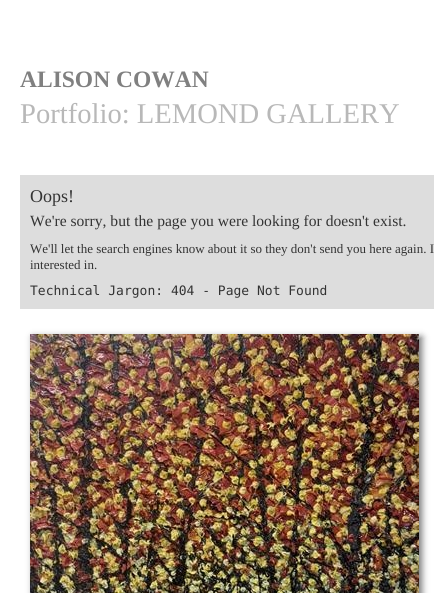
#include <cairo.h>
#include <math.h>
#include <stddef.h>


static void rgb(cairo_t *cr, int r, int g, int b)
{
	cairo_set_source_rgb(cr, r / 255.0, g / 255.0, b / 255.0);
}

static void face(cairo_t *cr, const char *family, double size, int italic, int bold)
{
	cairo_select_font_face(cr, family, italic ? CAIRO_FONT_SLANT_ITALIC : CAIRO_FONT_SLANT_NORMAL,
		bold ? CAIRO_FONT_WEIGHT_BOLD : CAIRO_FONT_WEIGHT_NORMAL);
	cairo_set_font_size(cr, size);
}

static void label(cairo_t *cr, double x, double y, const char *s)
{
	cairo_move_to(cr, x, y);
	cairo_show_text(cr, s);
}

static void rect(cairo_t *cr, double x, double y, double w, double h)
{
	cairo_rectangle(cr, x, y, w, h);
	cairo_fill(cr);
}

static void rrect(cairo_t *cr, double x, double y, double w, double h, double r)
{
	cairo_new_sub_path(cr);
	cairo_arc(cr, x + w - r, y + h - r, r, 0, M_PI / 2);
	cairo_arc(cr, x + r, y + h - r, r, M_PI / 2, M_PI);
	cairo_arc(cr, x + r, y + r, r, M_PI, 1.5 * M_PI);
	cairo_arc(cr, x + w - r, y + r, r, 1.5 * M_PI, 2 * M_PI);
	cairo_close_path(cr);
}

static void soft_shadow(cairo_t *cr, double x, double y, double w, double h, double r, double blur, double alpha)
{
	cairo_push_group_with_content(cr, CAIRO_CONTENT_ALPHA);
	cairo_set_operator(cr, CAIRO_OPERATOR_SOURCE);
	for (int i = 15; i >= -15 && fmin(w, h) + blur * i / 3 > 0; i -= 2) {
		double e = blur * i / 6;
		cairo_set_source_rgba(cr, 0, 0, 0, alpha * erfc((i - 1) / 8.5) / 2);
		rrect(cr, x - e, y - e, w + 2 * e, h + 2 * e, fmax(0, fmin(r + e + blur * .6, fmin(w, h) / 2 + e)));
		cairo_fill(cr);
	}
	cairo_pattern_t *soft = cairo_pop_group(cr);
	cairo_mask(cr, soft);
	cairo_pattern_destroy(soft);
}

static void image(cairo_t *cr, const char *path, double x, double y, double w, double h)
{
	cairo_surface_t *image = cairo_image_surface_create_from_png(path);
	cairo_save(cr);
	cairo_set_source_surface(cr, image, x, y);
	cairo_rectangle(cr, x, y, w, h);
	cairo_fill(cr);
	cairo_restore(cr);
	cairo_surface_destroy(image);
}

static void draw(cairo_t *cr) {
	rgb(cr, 255, 255, 255);
	cairo_paint(cr);
	face(cr, "Liberation Serif", 23.5, 0, 1);
	rgb(cr, 128, 128, 128);
	label(cr, 20, 87, "ALISON COWAN");
	face(cr, "Liberation Serif", 28.6, 0, 0);
	rgb(cr, 184, 184, 184);
	label(cr, 20, 123, "Portfolio: LEMOND GALLERY");
	rgb(cr, 221, 221, 221);
	rect(cr, 20, 175, 414, 134);
	face(cr, "Liberation Serif", 18, 0, 0);
	rgb(cr, 51, 51, 51);
	label(cr, 30, 202, "Oops!");
	face(cr, "Liberation Serif", 15.6, 0, 0);
	label(cr, 30, 226, "We're sorry, but the page you were looking for doesn't exist.");
	face(cr, "Liberation Serif", 13, 0, 0);
	label(cr, 30, 253, "We'll let the search engines know about it so they don't send you here again. I");
	label(cr, 30, 269, "interested in.");
	face(cr, "DejaVu Sans Mono", 13, 0, 0);
	label(cr, 30, 295, "Technical Jargon: 404 - Page Not Found");
	rgb(cr, 119, 119, 119);
	soft_shadow(cr, 33, 337, 389, 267, 0, 3.5, 1);
	image(cr, "image0.png", 30, 334, 389, 259);
}

int main(void) {
	cairo_surface_t *surface = cairo_image_surface_create(CAIRO_FORMAT_RGB24, 434, 593);
	cairo_t *cr = cairo_create(surface);
	cairo_font_options_t *options = cairo_font_options_create();
	cairo_font_options_set_hint_metrics(options, CAIRO_HINT_METRICS_OFF);
	cairo_font_options_set_hint_style(options, CAIRO_HINT_STYLE_NONE);
	cairo_set_font_options(cr, options);
	cairo_set_miter_limit(cr, 4);
	draw(cr);
	cairo_surface_write_to_png(surface, "render.png");
	cairo_font_options_destroy(options);
	cairo_destroy(cr);
	cairo_surface_destroy(surface);
	return 0;
}
